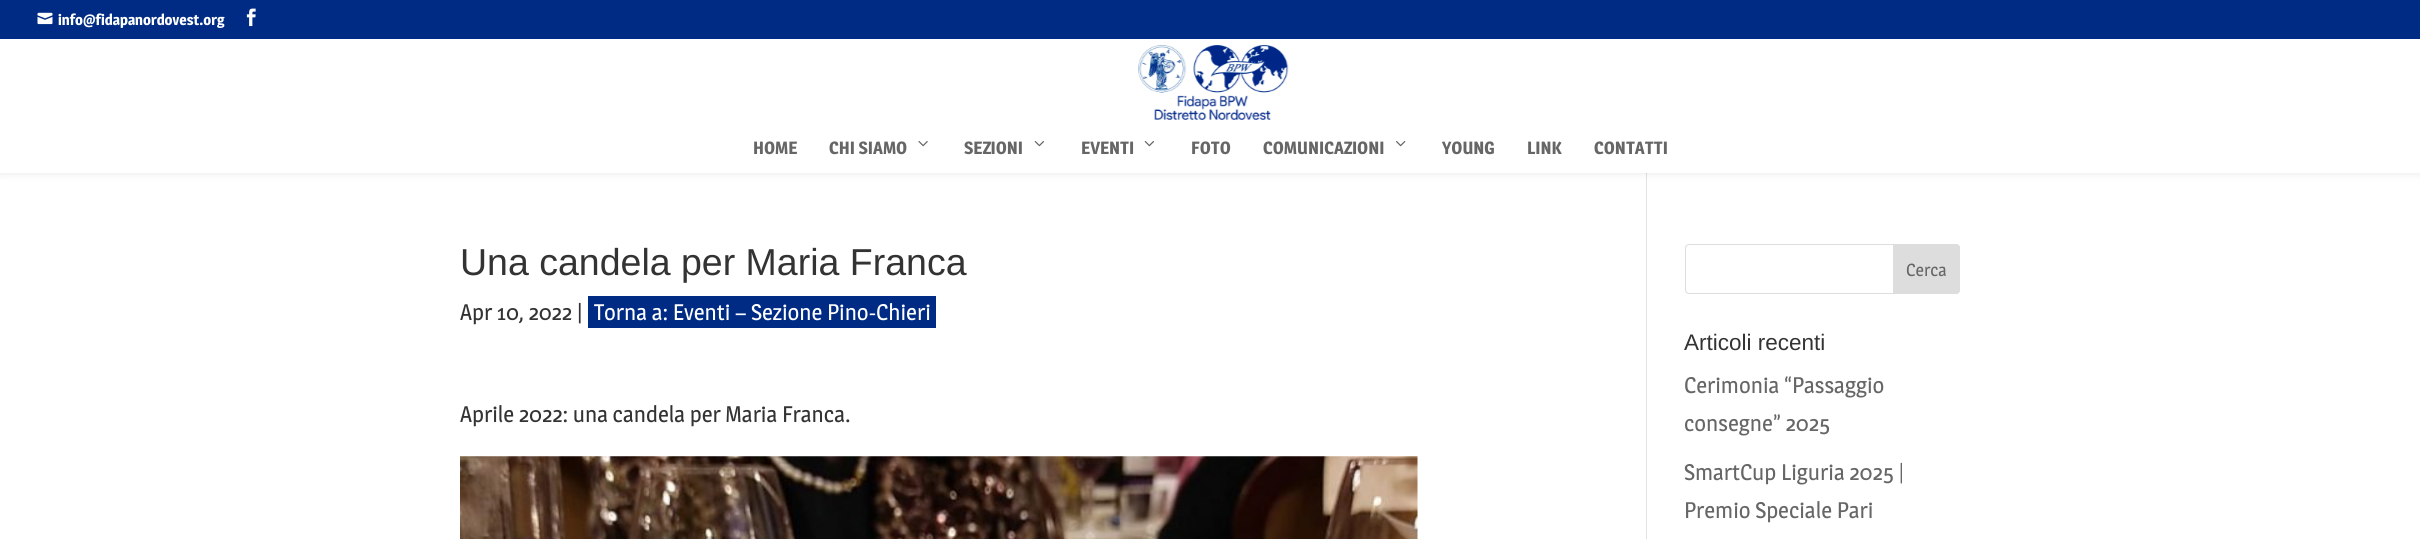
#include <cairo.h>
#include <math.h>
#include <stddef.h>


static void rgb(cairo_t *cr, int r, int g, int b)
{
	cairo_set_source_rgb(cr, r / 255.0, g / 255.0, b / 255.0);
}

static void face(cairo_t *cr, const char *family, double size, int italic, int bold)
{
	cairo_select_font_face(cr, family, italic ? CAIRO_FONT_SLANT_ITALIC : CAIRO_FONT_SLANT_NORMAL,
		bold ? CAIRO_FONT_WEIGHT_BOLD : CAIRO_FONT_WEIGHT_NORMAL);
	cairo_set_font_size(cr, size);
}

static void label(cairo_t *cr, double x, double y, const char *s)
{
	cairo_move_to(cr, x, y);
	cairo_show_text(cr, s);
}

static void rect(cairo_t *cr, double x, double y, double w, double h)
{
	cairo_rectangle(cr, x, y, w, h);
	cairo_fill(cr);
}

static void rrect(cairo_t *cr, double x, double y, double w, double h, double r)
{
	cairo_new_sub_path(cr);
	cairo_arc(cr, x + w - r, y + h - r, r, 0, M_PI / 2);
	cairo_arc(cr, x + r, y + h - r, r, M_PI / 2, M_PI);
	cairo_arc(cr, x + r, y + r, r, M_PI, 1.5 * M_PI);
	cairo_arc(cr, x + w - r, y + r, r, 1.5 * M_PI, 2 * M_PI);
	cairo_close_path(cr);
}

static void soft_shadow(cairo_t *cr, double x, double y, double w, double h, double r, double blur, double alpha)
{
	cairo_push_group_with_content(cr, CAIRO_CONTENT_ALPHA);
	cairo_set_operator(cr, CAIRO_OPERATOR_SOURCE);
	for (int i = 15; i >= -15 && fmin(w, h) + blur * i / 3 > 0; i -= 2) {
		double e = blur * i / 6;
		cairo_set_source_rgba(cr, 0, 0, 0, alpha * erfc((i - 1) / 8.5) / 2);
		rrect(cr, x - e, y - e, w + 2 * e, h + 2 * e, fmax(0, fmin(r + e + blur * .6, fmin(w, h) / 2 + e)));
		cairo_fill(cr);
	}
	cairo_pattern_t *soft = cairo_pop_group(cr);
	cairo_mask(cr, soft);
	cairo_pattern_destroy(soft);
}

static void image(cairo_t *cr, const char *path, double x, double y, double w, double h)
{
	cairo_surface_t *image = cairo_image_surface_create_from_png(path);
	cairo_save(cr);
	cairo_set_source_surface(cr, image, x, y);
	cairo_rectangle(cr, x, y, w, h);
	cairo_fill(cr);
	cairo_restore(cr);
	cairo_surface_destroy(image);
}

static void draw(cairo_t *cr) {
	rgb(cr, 255, 255, 255);
	cairo_paint(cr);
	rgb(cr, 226, 226, 226);
	rect(cr, 1646, 171, 1, 368);
	rgb(cr, 0, 0, 0);
	soft_shadow(cr, 0, 39, 2420, 134, 0, 4.5, 0.1);
	rgb(cr, 0, 43, 132);
	rect(cr, 0, 0, 2420, 39);
	image(cr, "image0.png", 37, 12, 16, 13);
	face(cr, "Magra", 15, 0, 1);
	rgb(cr, 255, 255, 255);
	label(cr, 58, 25, "info@fidapanordovest.org");
	image(cr, "image1.png", 246, 8, 10, 19);
	rect(cr, 0, 39, 2420, 134);
	image(cr, "image2.png", 1138, 45, 151, 75);
	face(cr, "Magra", 17.5, 0, 1);
	rgb(cr, 102, 102, 102);
	label(cr, 753, 154, "HOME");
	label(cr, 829, 154, "CHI SIAMO");
	image(cr, "image3.png", 918, 141, 10, 6);
	label(cr, 964, 154, "SEZIONI");
	image(cr, "image4.png", 1034, 141, 10, 6);
	label(cr, 1081, 154, "EVENTI");
	image(cr, "image4.png", 1144, 141, 10, 6);
	label(cr, 1191, 154, "FOTO");
	label(cr, 1263, 154, "COMUNICAZIONI");
	image(cr, "image5.png", 1396, 141, 10, 6);
	label(cr, 1442, 154, "YOUNG");
	label(cr, 1527, 154, "LINK");
	label(cr, 1594, 154, "CONTATTI");
	face(cr, "Liberation Sans", 37.5, 0, 0);
	rgb(cr, 51, 51, 51);
	label(cr, 460, 275, "Una candela per Maria Franca");
	face(cr, "Magra", 22.5, 0, 0);
	label(cr, 460, 320, "Apr 10, 2022 |");
	rgb(cr, 0, 43, 132);
	rect(cr, 588, 296, 348, 32);
	rgb(cr, 255, 255, 255);
	label(cr, 594, 320, "Torna a: Eventi – Sezione Pino-Chieri");
	rgb(cr, 51, 51, 51);
	label(cr, 460, 422, "Aprile 2022: una candela per Maria Franca.");
	image(cr, "image6.png", 460, 456, 958, 83);
	rrect(cr, 1685.5, 244.5, 274, 49, 3.5);
	rgb(cr, 221, 221, 221);
	cairo_set_line_width(cr, 1);
	cairo_stroke(cr);
	cairo_new_path(cr);
	cairo_move_to(cr, 1893.5, 244.5);
	cairo_line_to(cr, 1956, 244.5);
	cairo_curve_to(cr, 1958, 244.5, 1959.5, 246, 1959.5, 248);
	cairo_line_to(cr, 1959.5, 290);
	cairo_curve_to(cr, 1959.5, 292, 1958, 293.5, 1956, 293.5);
	cairo_line_to(cr, 1893.5, 293.5);
	cairo_close_path(cr);
	cairo_fill_preserve(cr);
	cairo_stroke(cr);
	face(cr, "Magra", 17.5, 0, 0);
	rgb(cr, 102, 102, 102);
	label(cr, 1906, 276, "Cerca");
	face(cr, "Liberation Sans", 22.5, 0, 0);
	rgb(cr, 51, 51, 51);
	label(cr, 1684, 350, "Articoli recenti");
	face(cr, "Magra", 22.5, 0, 0);
	rgb(cr, 102, 102, 102);
	label(cr, 1684, 393, "Cerimonia “Passaggio");
	label(cr, 1684, 431, "consegne” 2025");
	label(cr, 1684, 480, "SmartCup Liguria 2025 |");
	label(cr, 1684, 518, "Premio Speciale Pari");
}

int main(void) {
	cairo_surface_t *surface = cairo_image_surface_create(CAIRO_FORMAT_RGB24, 2420, 539);
	cairo_t *cr = cairo_create(surface);
	cairo_font_options_t *options = cairo_font_options_create();
	cairo_font_options_set_hint_metrics(options, CAIRO_HINT_METRICS_OFF);
	cairo_font_options_set_hint_style(options, CAIRO_HINT_STYLE_NONE);
	cairo_set_font_options(cr, options);
	cairo_set_miter_limit(cr, 4);
	draw(cr);
	cairo_surface_write_to_png(surface, "render.png");
	cairo_font_options_destroy(options);
	cairo_destroy(cr);
	cairo_surface_destroy(surface);
	return 0;
}
